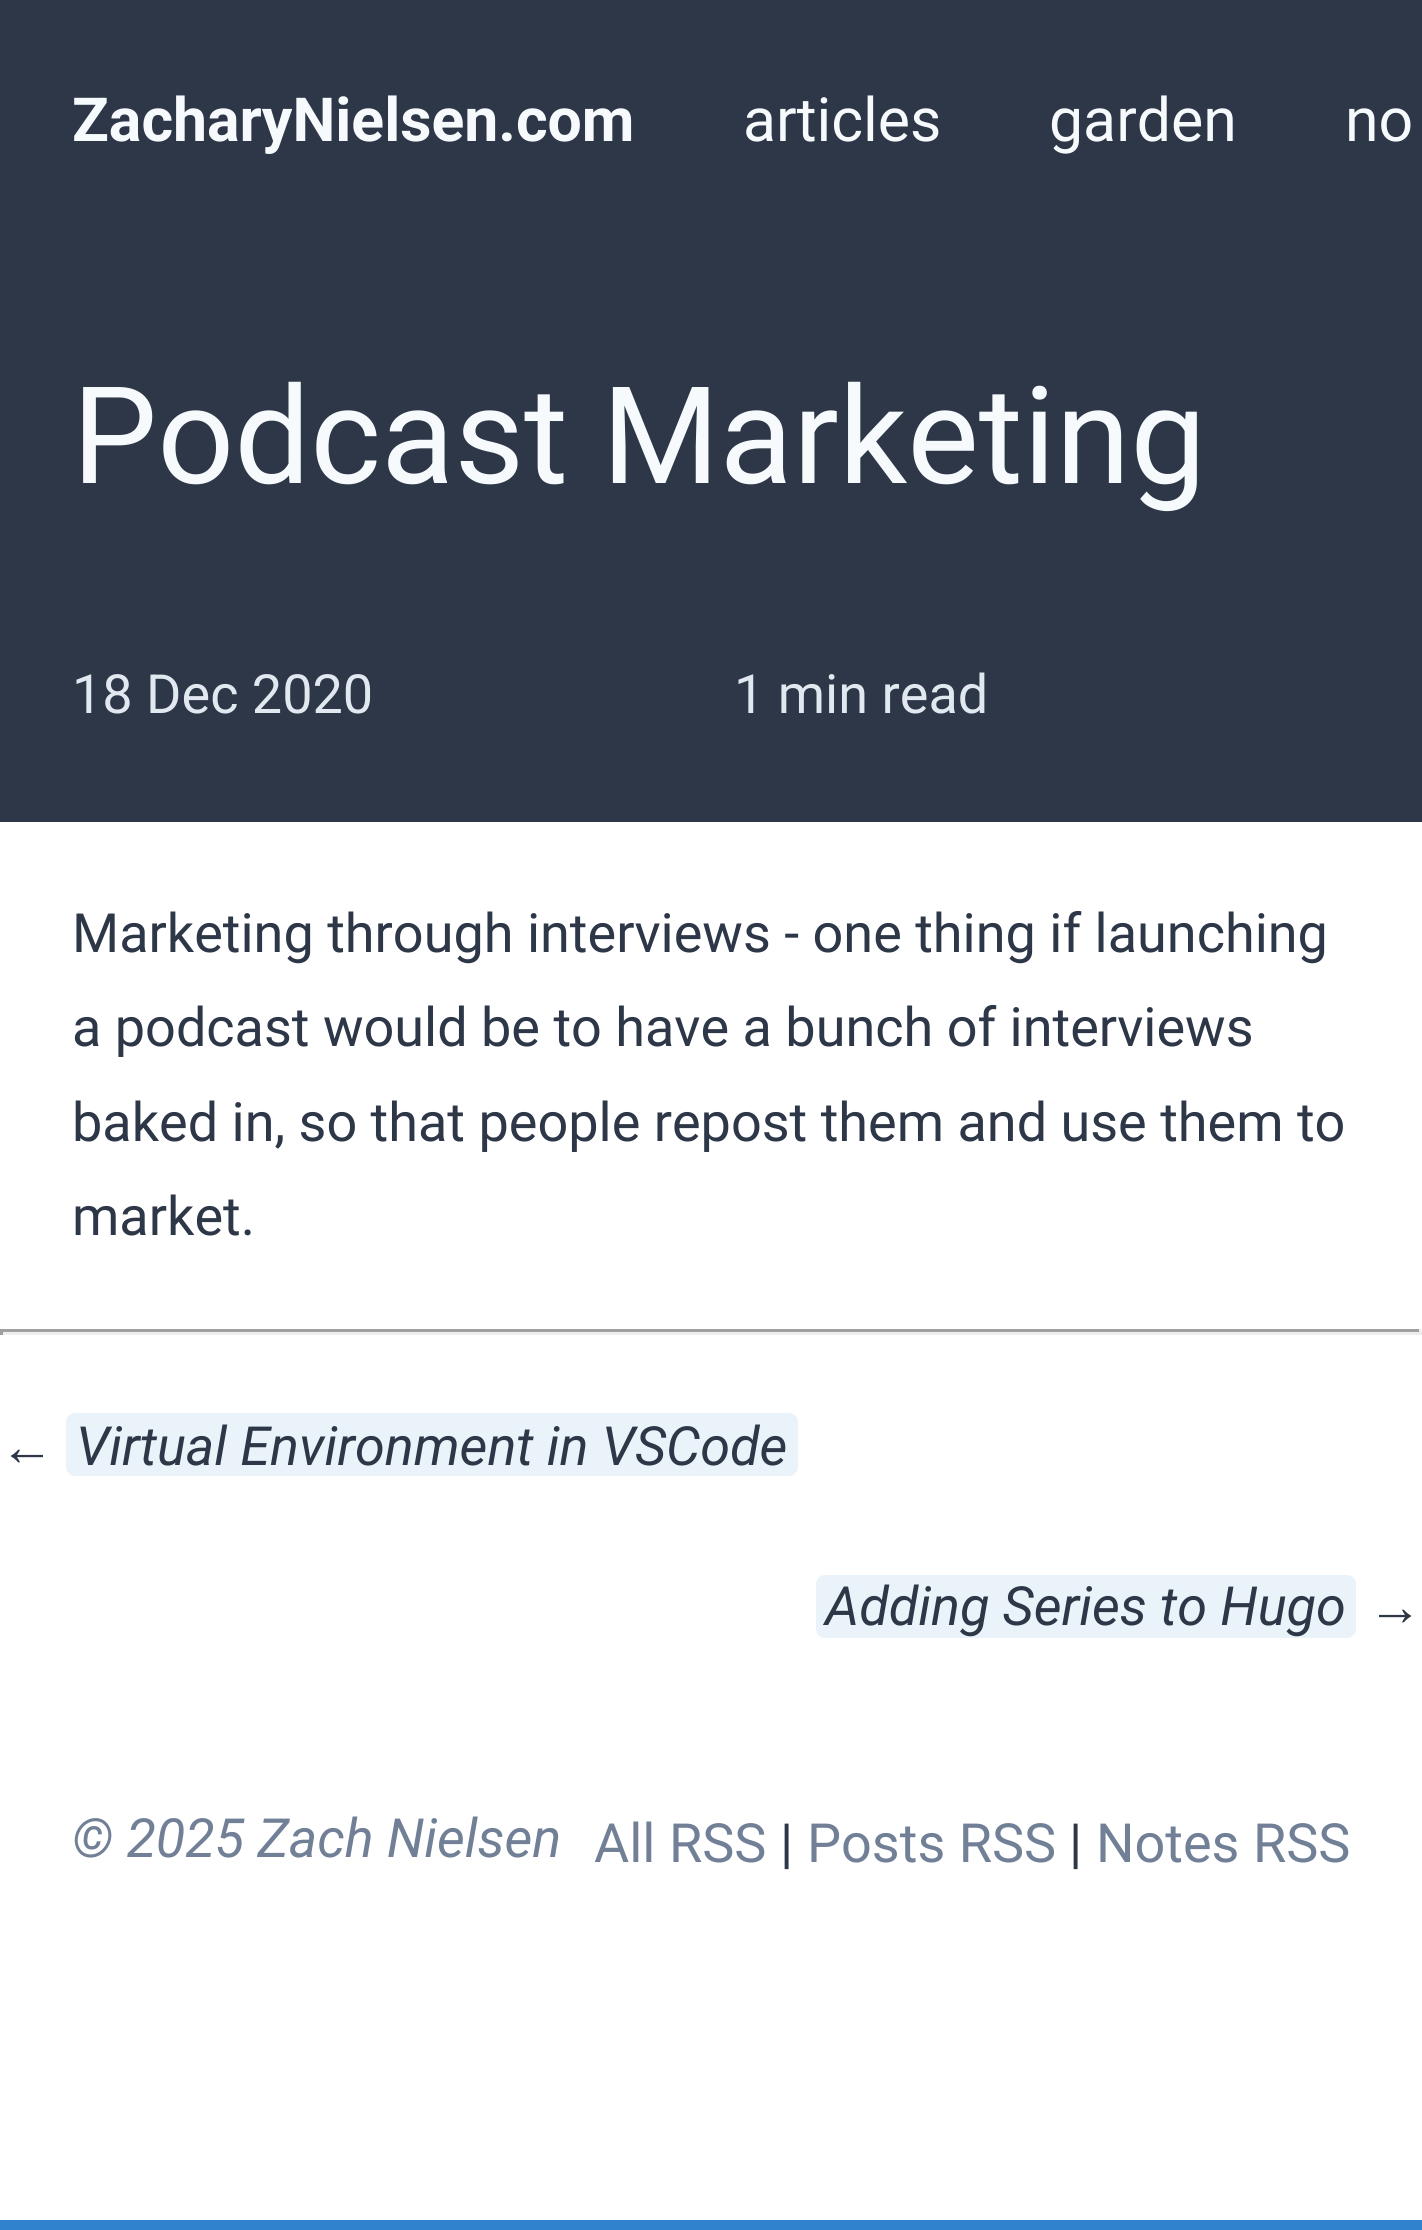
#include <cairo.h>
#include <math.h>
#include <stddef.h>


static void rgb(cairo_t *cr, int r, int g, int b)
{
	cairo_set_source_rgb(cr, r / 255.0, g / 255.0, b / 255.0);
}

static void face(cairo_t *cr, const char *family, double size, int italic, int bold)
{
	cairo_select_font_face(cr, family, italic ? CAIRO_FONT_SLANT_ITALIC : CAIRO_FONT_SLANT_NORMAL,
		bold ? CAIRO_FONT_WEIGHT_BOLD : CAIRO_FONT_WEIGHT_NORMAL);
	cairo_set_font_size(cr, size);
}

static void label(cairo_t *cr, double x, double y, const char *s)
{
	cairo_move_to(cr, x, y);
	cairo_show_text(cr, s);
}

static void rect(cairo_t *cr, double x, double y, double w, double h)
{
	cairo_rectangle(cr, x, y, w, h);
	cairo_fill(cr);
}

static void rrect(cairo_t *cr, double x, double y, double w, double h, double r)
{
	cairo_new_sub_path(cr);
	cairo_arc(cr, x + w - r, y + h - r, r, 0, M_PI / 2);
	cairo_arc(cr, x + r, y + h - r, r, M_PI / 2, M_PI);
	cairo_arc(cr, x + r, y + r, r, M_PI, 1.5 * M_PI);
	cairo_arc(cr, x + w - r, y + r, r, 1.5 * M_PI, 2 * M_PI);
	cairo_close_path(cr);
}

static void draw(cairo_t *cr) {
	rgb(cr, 49, 130, 206);
	cairo_paint(cr);
	rgb(cr, 255, 255, 255);
	rect(cr, 0, 822, 1422, 1398);
	rgb(cr, 45, 55, 72);
	rect(cr, 0, 0, 1422, 822);
	face(cr, "Roboto", 60.75, 0, 1);
	rgb(cr, 247, 250, 252);
	label(cr, 72, 141, "ZacharyNielsen.com");
	face(cr, "Roboto", 60.75, 0, 0);
	label(cr, 743, 141, "articles");
	label(cr, 1049, 141, "garden");
	label(cr, 1345, 141, "no");
	face(cr, "Roboto", 135, 0, 0);
	label(cr, 72, 483, "Podcast Marketing");
	face(cr, "Roboto", 54, 0, 0);
	rgb(cr, 226, 232, 240);
	label(cr, 72, 713, "18 Dec 2020");
	label(cr, 734, 713, "1 min read");
	rgb(cr, 45, 55, 72);
	label(cr, 72, 952, "Marketing through interviews - one thing if launching");
	label(cr, 72, 1046, "a podcast would be to have a bunch of interviews");
	label(cr, 72, 1141, "baked in, so that people repost them and use them to");
	label(cr, 72, 1235, "market.");
	rgb(cr, 159, 159, 159);
	rect(cr, 0, 1329, 1422, 3);
	rgb(cr, 238, 238, 238);
	rect(cr, 1419, 1329, 3, 6);
	rect(cr, 0, 1332, 1422, 3);
	rgb(cr, 159, 159, 159);
	rect(cr, 0, 1329, 3, 6);
	face(cr, "Liberation Sans", 54, 0, 0);
	rgb(cr, 45, 55, 72);
	label(cr, 0, 1465, "←");
	rgb(cr, 234, 243, 250);
	rrect(cr, 66, 1413, 732, 63, 9);
	cairo_fill(cr);
	face(cr, "Roboto", 54, 1, 0);
	rgb(cr, 45, 55, 72);
	label(cr, 76, 1465, "Virtual Environment in VSCode");
	rgb(cr, 234, 243, 250);
	rrect(cr, 816, 1575, 540, 63, 9);
	cairo_fill(cr);
	rgb(cr, 45, 55, 72);
	label(cr, 825, 1625, "Adding Series to Hugo");
	face(cr, "Liberation Sans", 54, 0, 0);
	label(cr, 1368, 1625, "→");
	face(cr, "Roboto", 54, 1, 0);
	rgb(cr, 113, 128, 150);
	label(cr, 72, 1857, "© 2025 Zach Nielsen");
	face(cr, "Roboto", 54, 0, 0);
	label(cr, 594, 1862, "All RSS");
	rgb(cr, 45, 55, 72);
	label(cr, 780, 1862, "|");
	rgb(cr, 113, 128, 150);
	label(cr, 807, 1862, "Posts RSS");
	rgb(cr, 45, 55, 72);
	label(cr, 1069, 1862, "|");
	rgb(cr, 113, 128, 150);
	label(cr, 1096, 1862, "Notes RSS");
}

int main(void) {
	cairo_surface_t *surface = cairo_image_surface_create(CAIRO_FORMAT_RGB24, 1422, 2230);
	cairo_t *cr = cairo_create(surface);
	cairo_font_options_t *options = cairo_font_options_create();
	cairo_font_options_set_hint_metrics(options, CAIRO_HINT_METRICS_OFF);
	cairo_font_options_set_hint_style(options, CAIRO_HINT_STYLE_NONE);
	cairo_set_font_options(cr, options);
	cairo_set_miter_limit(cr, 4);
	draw(cr);
	cairo_surface_write_to_png(surface, "render.png");
	cairo_font_options_destroy(options);
	cairo_destroy(cr);
	cairo_surface_destroy(surface);
	return 0;
}
